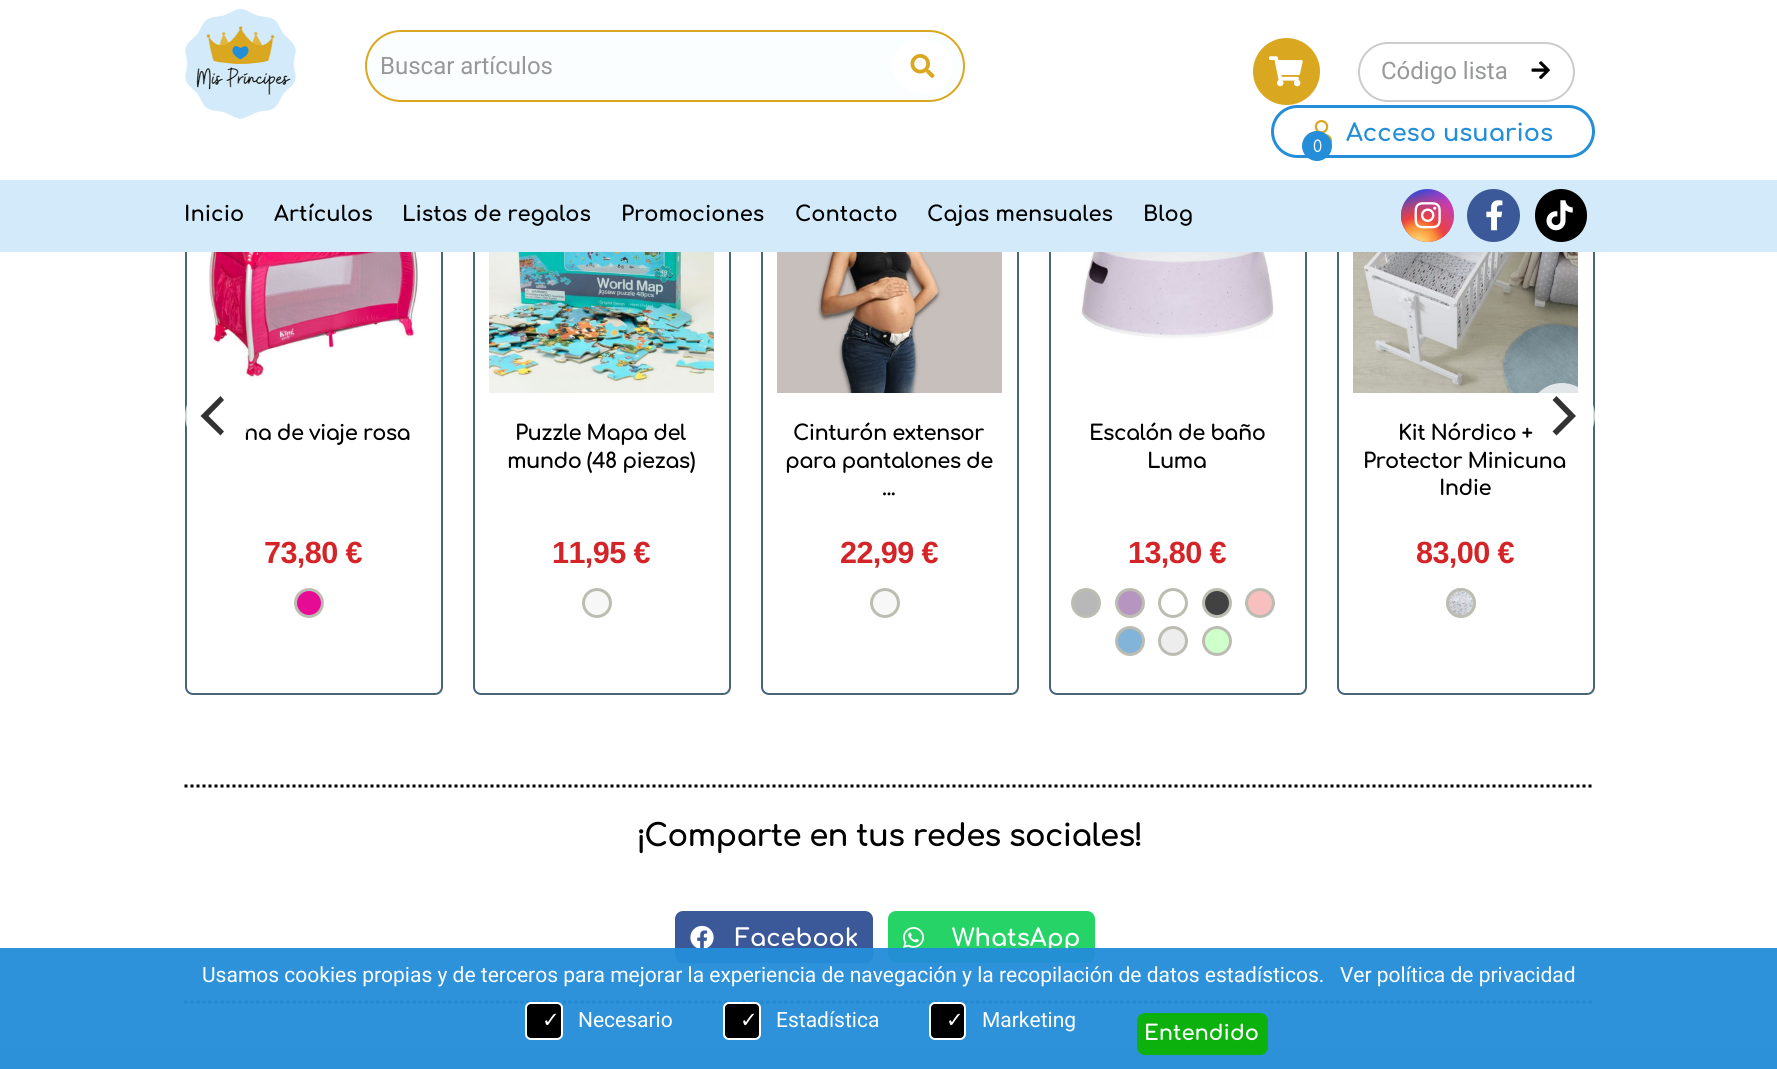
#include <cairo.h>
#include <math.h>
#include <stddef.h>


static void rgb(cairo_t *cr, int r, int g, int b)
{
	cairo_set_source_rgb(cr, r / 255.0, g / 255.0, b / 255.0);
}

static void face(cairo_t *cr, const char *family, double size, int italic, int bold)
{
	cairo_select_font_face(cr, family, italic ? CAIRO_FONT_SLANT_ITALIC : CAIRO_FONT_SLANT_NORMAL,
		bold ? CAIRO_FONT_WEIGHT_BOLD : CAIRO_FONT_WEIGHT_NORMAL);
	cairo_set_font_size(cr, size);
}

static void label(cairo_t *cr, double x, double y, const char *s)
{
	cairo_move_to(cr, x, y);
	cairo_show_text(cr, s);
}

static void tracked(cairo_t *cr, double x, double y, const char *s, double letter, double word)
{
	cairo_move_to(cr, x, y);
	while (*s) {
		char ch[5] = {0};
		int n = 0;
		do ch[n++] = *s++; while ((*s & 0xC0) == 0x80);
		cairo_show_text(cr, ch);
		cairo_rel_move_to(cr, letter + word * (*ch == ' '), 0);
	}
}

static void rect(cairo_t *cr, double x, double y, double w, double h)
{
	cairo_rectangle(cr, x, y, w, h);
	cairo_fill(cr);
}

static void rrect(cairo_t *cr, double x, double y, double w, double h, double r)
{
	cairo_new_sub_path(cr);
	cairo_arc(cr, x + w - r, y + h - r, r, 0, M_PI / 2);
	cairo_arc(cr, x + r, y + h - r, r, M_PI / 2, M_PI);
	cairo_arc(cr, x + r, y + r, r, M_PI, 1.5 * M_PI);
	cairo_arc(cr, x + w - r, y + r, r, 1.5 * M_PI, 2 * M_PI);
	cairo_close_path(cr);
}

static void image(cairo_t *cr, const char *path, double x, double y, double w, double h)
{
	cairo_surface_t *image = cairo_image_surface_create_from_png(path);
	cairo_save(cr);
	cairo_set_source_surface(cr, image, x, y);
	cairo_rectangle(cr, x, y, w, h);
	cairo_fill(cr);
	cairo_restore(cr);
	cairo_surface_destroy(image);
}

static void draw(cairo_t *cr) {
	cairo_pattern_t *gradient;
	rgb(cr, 255, 255, 255);
	cairo_paint(cr);
	rrect(cr, 186, 138, 256, 556, 7);
	rgb(cr, 71, 100, 121);
	cairo_stroke(cr);
	rrect(cr, 474, 138, 256, 556, 7);
	cairo_stroke(cr);
	rrect(cr, 762, 138, 256, 556, 7);
	cairo_stroke(cr);
	rrect(cr, 1050, 138, 256, 556, 7);
	cairo_stroke(cr);
	rrect(cr, 1338, 138, 256, 556, 7);
	cairo_stroke(cr);
	rgb(cr, 255, 255, 255);
	rect(cr, 185, 137, 1410, 43);
	image(cr, "image0.png", 185, 9, 111, 110);
	rgb(cr, 251, 254, 255);
	rrect(cr, 366, 31, 598, 70, 35);
	cairo_fill_preserve(cr);
	rgb(cr, 218, 167, 32);
	cairo_stroke(cr);
	face(cr, "Roboto", 24, 0, 0);
	rgb(cr, 151, 152, 153);
	label(cr, 380, 74, "Buscar artículos");
	rgb(cr, 255, 255, 255);
	cairo_new_path(cr);
	cairo_move_to(cr, 922.5, 39);
	cairo_curve_to(cr, 939, 39, 952.5, 51, 952.5, 66);
	cairo_curve_to(cr, 952.5, 81, 939, 93, 922.5, 93);
	cairo_curve_to(cr, 906, 93, 892.5, 81, 892.5, 66);
	cairo_curve_to(cr, 892.5, 51, 906, 39, 922.5, 39);
	cairo_close_path(cr);
	cairo_fill(cr);
	image(cr, "image1.png", 910, 54, 25, 24);
	rrect(cr, 1359, 43, 215, 58, 29);
	rgb(cr, 204, 204, 204);
	cairo_stroke(cr);
	rgb(cr, 151, 152, 153);
	label(cr, 1381, 79, "Código lista");
	image(cr, "image2.png", 1531, 61, 19, 18);
	rrect(cr, 1272.5, 106.5, 321, 50, 25);
	rgb(cr, 37, 142, 216);
	cairo_set_line_width(cr, 3);
	cairo_stroke(cr);
	image(cr, "image3.png", 1314, 120, 18, 24);
	face(cr, "Comfortaa", 24, 0, 1);
	label(cr, 1346, 141, "Acceso usuarios");
	rgb(cr, 218, 167, 32);
	cairo_new_path(cr);
	cairo_arc(cr, 1286.5, 71.5, 33.5, 0, 2 * M_PI);
	cairo_fill(cr);
	image(cr, "image4.png", 1269, 56, 34, 31);
	rgb(cr, 37, 142, 216);
	cairo_arc(cr, 1317, 146, 15, 0, 2 * M_PI);
	cairo_fill(cr);
	face(cr, "Comfortaa", 16, 0, 0);
	rgb(cr, 255, 255, 255);
	label(cr, 1313, 152, "0");
	rgb(cr, 210, 234, 249);
	rect(cr, 0, 180, 1777, 72);
	face(cr, "Comfortaa", 21, 0, 1);
	rgb(cr, 0, 0, 0);
	label(cr, 184, 221, "Inicio");
	label(cr, 274, 221, "Artículos");
	label(cr, 402, 221, "Listas de regalos");
	label(cr, 621, 221, "Promociones");
	label(cr, 795, 221, "Contacto");
	label(cr, 927, 221, "Cajas mensuales");
	label(cr, 1143, 221, "Blog");
	gradient = cairo_pattern_create_linear(1401, 189, 1454, 242);
	cairo_pattern_add_color_stop_rgba(gradient, 0.12, 0.137, 0.294, 0.843, 1);
	cairo_pattern_add_color_stop_rgba(gradient, 0.58, 0.765, 0.235, 0.745, 1);
	cairo_set_source(cr, gradient);
	cairo_pattern_destroy(gradient);
	cairo_new_path(cr);
	cairo_arc(cr, 1427.5, 215.5, 26.5, 0, 2 * M_PI);
	cairo_fill(cr);
	gradient = cairo_pattern_create_radial(1418, 245, 0, 1418, 245, 66);
	cairo_pattern_add_color_stop_rgba(gradient, 0, 1, 0.882, 0.49, 1);
	cairo_pattern_add_color_stop_rgba(gradient, 0.1, 1, 0.804, 0.412, 1);
	cairo_pattern_add_color_stop_rgba(gradient, 0.28, 0.98, 0.569, 0.216, 1);
	cairo_pattern_add_color_stop_rgba(gradient, 0.42, 0.922, 0.255, 0.255, 1);
	cairo_pattern_add_color_stop_rgba(gradient, 0.82, 0.922, 0.255, 0.255, 0);
	cairo_set_source(cr, gradient);
	cairo_pattern_destroy(gradient);
	cairo_arc(cr, 1427.5, 215.5, 26.5, 0, 2 * M_PI);
	cairo_fill(cr);
	image(cr, "image5.png", 1414, 202, 27, 27);
	rgb(cr, 59, 89, 152);
	cairo_arc(cr, 1493.5, 215.5, 26.5, 0, 2 * M_PI);
	cairo_fill(cr);
	image(cr, "image6.png", 1486, 200, 17, 31);
	rgb(cr, 0, 0, 0);
	rrect(cr, 1535, 189, 52, 53, 26);
	cairo_fill(cr);
	image(cr, "image7.png", 1546, 200, 27, 31);
	tracked(cr, 244, 440, "na de viaje rosa", -0.6, 0);
	cairo_set_source_rgba(cr, 1, 1, 1, 0.75);
	cairo_new_path(cr);
	cairo_arc(cr, 218, 416, 33, 0, 2 * M_PI);
	cairo_fill(cr);
	rgb(cr, 51, 51, 51);
	cairo_new_path(cr);
	cairo_move_to(cr, 200.5, 416);
	cairo_line_to(cr, 220.5, 435.5);
	cairo_line_to(cr, 224, 431.5);
	cairo_line_to(cr, 208.5, 416);
	cairo_line_to(cr, 224, 400);
	cairo_line_to(cr, 220.5, 396);
	cairo_close_path(cr);
	cairo_fill(cr);
	image(cr, "image12.png", 1353, 252, 225, 141);
	rgb(cr, 0, 0, 0);
	tracked(cr, 1398, 440, "Kit Nórdico +", -0.6, 0);
	cairo_set_source_rgba(cr, 1, 1, 1, 0.75);
	cairo_new_path(cr);
	cairo_arc(cr, 1562, 416, 33, 0, 2 * M_PI);
	cairo_fill(cr);
	rgb(cr, 51, 51, 51);
	cairo_new_path(cr);
	cairo_move_to(cr, 1576, 416);
	cairo_line_to(cr, 1556.5, 396);
	cairo_line_to(cr, 1552.5, 400);
	cairo_line_to(cr, 1568, 416);
	cairo_line_to(cr, 1552.5, 431.5);
	cairo_line_to(cr, 1556.5, 435.5);
	cairo_close_path(cr);
	cairo_fill(cr);
	image(cr, "image8.png", 208, 252, 211, 128);
	face(cr, "Liberation Sans", 30.6, 0, 1);
	rgb(cr, 212, 36, 40);
	tracked(cr, 264, 563, "73,80 €", -0.6, 0);
	rgb(cr, 230, 10, 149);
	cairo_new_path(cr);
	cairo_arc(cr, 309, 603, 13.5, 0, 2 * M_PI);
	cairo_fill_preserve(cr);
	rgb(cr, 189, 188, 178);
	cairo_stroke(cr);
	image(cr, "image9.png", 489, 252, 225, 141);
	face(cr, "Comfortaa", 21, 0, 1);
	rgb(cr, 0, 0, 0);
	tracked(cr, 515, 440, "Puzzle Mapa del", -0.6, 0);
	tracked(cr, 507, 468, "mundo (48 piezas)", -0.6, 0);
	face(cr, "Liberation Sans", 30.6, 0, 1);
	rgb(cr, 212, 36, 40);
	tracked(cr, 552, 563, "11,95 €", -0.6, 0);
	rgb(cr, 247, 247, 247);
	cairo_new_path(cr);
	cairo_arc(cr, 597, 603, 13.5, 0, 2 * M_PI);
	cairo_fill_preserve(cr);
	rgb(cr, 189, 188, 178);
	cairo_stroke(cr);
	image(cr, "image10.png", 777, 252, 225, 141);
	face(cr, "Comfortaa", 21, 0, 1);
	rgb(cr, 0, 0, 0);
	tracked(cr, 793, 440, "Cinturón extensor", -0.6, 0);
	tracked(cr, 785, 468, "para pantalones de", -0.6, 0);
	tracked(cr, 882, 495, "...", -0.6, 0);
	face(cr, "Liberation Sans", 30.6, 0, 1);
	rgb(cr, 212, 36, 40);
	tracked(cr, 840, 563, "22,99 €", -0.6, 0);
	rgb(cr, 247, 247, 247);
	cairo_new_path(cr);
	cairo_arc(cr, 885, 603, 13.5, 0, 2 * M_PI);
	cairo_fill_preserve(cr);
	rgb(cr, 189, 188, 178);
	cairo_stroke(cr);
	image(cr, "image11.png", 1081, 252, 193, 87);
	face(cr, "Comfortaa", 21, 0, 1);
	rgb(cr, 0, 0, 0);
	tracked(cr, 1089, 440, "Escalón de baño", -0.6, 0);
	tracked(cr, 1147, 468, "Luma", -0.6, 0);
	face(cr, "Liberation Sans", 30.6, 0, 1);
	rgb(cr, 212, 36, 40);
	tracked(cr, 1128, 563, "13,80 €", -0.6, 0);
	rgb(cr, 184, 184, 184);
	cairo_new_path(cr);
	cairo_arc(cr, 1086, 603, 13.5, 0, 2 * M_PI);
	cairo_fill_preserve(cr);
	rgb(cr, 189, 188, 178);
	cairo_stroke(cr);
	rgb(cr, 182, 149, 192);
	cairo_arc(cr, 1130, 603, 13.5, 0, 2 * M_PI);
	cairo_fill_preserve(cr);
	rgb(cr, 189, 188, 178);
	cairo_stroke(cr);
	cairo_arc(cr, 1173, 603, 13.5, 0, 2 * M_PI);
	cairo_stroke(cr);
	rgb(cr, 66, 66, 66);
	cairo_arc(cr, 1217, 603, 13.5, 0, 2 * M_PI);
	cairo_fill_preserve(cr);
	rgb(cr, 189, 188, 178);
	cairo_stroke(cr);
	rgb(cr, 247, 191, 190);
	cairo_arc(cr, 1260, 603, 13.5, 0, 2 * M_PI);
	cairo_fill_preserve(cr);
	rgb(cr, 189, 188, 178);
	cairo_stroke(cr);
	rgb(cr, 130, 179, 217);
	cairo_arc(cr, 1130, 641, 13.5, 0, 2 * M_PI);
	cairo_fill_preserve(cr);
	rgb(cr, 189, 188, 178);
	cairo_stroke(cr);
	rgb(cr, 237, 237, 237);
	cairo_arc(cr, 1173, 641, 13.5, 0, 2 * M_PI);
	cairo_fill_preserve(cr);
	rgb(cr, 189, 188, 178);
	cairo_stroke(cr);
	rgb(cr, 207, 255, 202);
	cairo_arc(cr, 1217, 641, 13.5, 0, 2 * M_PI);
	cairo_fill_preserve(cr);
	rgb(cr, 189, 188, 178);
	cairo_stroke(cr);
	face(cr, "Comfortaa", 21, 0, 1);
	rgb(cr, 0, 0, 0);
	tracked(cr, 1363, 468, "Protector Minicuna", -0.6, 0);
	tracked(cr, 1439, 495, "Indie", -0.6, 0);
	face(cr, "Liberation Sans", 30.6, 0, 1);
	rgb(cr, 212, 36, 40);
	tracked(cr, 1416, 563, "83,00 €", -0.6, 0);
	image(cr, "image13.png", 1446, 588, 30, 30);
	cairo_arc(cr, 1461, 603, 13.5, 0, 2 * M_PI);
	rgb(cr, 189, 188, 178);
	cairo_stroke(cr);
	cairo_new_path(cr);
	cairo_move_to(cr, 184.5, 786);
	cairo_line_to(cr, 1594.5, 786);
	rgb(cr, 0, 0, 0);
	cairo_set_dash(cr, (double[]){3, 3}, 2, 0);
	cairo_stroke(cr);
	cairo_new_path(cr);
	cairo_move_to(cr, 184.5, 1002);
	cairo_line_to(cr, 1594.5, 1002);
	cairo_stroke(cr);
	face(cr, "Comfortaa", 30.6, 0, 1);
	tracked(cr, 636, 846, "¡Comparte en tus redes sociales!", -0.6, 0);
	rgb(cr, 59, 89, 152);
	rrect(cr, 675, 911, 198, 52, 8);
	cairo_fill(cr);
	image(cr, "image14.png", 690, 925, 24, 24);
	face(cr, "Comfortaa", 24, 0, 1);
	rgb(cr, 255, 255, 255);
	label(cr, 735, 946, "Facebook");
	rgb(cr, 37, 211, 102);
	rrect(cr, 888, 911, 207, 52, 8);
	cairo_fill(cr);
	image(cr, "image15.png", 903, 927, 21, 21);
	rgb(cr, 255, 255, 255);
	label(cr, 952, 946, "WhatsApp");
	rgb(cr, 230, 230, 230);
	rect(cr, 0, 1049, 1777, 20);
	cairo_set_source_rgba(cr, 0.145, 0.557, 0.847, 0.96);
	rect(cr, 0, 948, 1777, 121);
	face(cr, "Roboto", 21, 0, 0);
	rgb(cr, 255, 255, 255);
	label(cr, 202, 982, "Usamos cookies propias y de terceros para mejorar la experiencia de navegación y la recopilación de datos estadísticos.");
	label(cr, 1340, 982, "Ver política de privacidad");
	rgb(cr, 0, 0, 0);
	rrect(cr, 526, 1003, 36, 36, 5);
	cairo_fill_preserve(cr);
	rgb(cr, 255, 255, 255);
	cairo_set_line_width(cr, 2);
	cairo_set_dash(cr, NULL, 0, 0);
	cairo_stroke(cr);
	face(cr, "DejaVu Sans", 21, 0, 0);
	label(cr, 542, 1027, "✓");
	face(cr, "Roboto", 21, 0, 0);
	label(cr, 578, 1027, "Necesario");
	rgb(cr, 0, 0, 0);
	rrect(cr, 724, 1003, 36, 36, 5);
	cairo_fill_preserve(cr);
	rgb(cr, 255, 255, 255);
	cairo_stroke(cr);
	face(cr, "DejaVu Sans", 21, 0, 0);
	label(cr, 740, 1027, "✓");
	face(cr, "Roboto", 21, 0, 0);
	label(cr, 776, 1027, "Estadística");
	rgb(cr, 0, 0, 0);
	rrect(cr, 930, 1003, 35, 36, 5);
	cairo_fill_preserve(cr);
	rgb(cr, 255, 255, 255);
	cairo_stroke(cr);
	face(cr, "DejaVu Sans", 21, 0, 0);
	label(cr, 946, 1027, "✓");
	face(cr, "Roboto", 21, 0, 0);
	label(cr, 982, 1027, "Marketing");
	rgb(cr, 12, 177, 13);
	rrect(cr, 1137, 1013, 131, 42, 8);
	cairo_fill(cr);
	face(cr, "Comfortaa", 21, 0, 1);
	rgb(cr, 255, 255, 255);
	label(cr, 1144, 1040, "Entendido");
}

int main(void) {
	cairo_surface_t *surface = cairo_image_surface_create(CAIRO_FORMAT_RGB24, 1777, 1069);
	cairo_t *cr = cairo_create(surface);
	cairo_font_options_t *options = cairo_font_options_create();
	cairo_font_options_set_hint_metrics(options, CAIRO_HINT_METRICS_OFF);
	cairo_font_options_set_hint_style(options, CAIRO_HINT_STYLE_NONE);
	cairo_set_font_options(cr, options);
	cairo_set_miter_limit(cr, 4);
	draw(cr);
	cairo_surface_write_to_png(surface, "render.png");
	cairo_font_options_destroy(options);
	cairo_destroy(cr);
	cairo_surface_destroy(surface);
	return 0;
}
